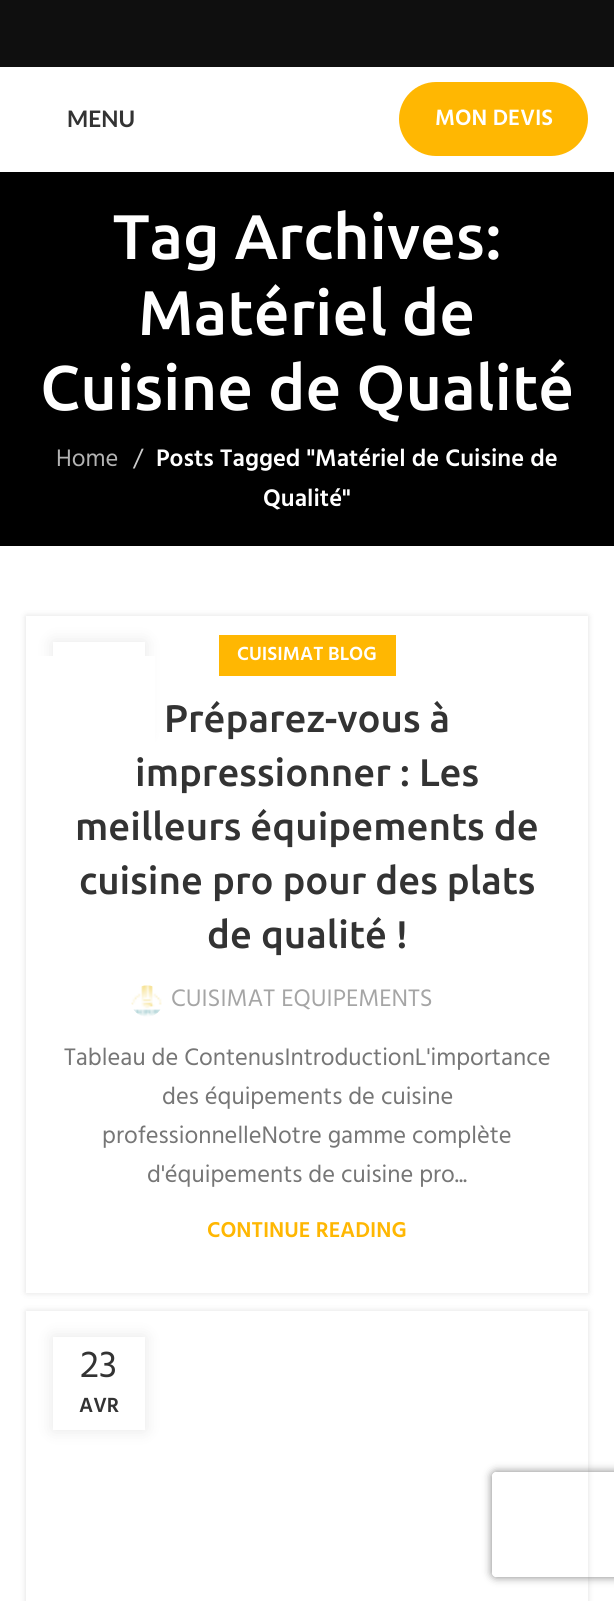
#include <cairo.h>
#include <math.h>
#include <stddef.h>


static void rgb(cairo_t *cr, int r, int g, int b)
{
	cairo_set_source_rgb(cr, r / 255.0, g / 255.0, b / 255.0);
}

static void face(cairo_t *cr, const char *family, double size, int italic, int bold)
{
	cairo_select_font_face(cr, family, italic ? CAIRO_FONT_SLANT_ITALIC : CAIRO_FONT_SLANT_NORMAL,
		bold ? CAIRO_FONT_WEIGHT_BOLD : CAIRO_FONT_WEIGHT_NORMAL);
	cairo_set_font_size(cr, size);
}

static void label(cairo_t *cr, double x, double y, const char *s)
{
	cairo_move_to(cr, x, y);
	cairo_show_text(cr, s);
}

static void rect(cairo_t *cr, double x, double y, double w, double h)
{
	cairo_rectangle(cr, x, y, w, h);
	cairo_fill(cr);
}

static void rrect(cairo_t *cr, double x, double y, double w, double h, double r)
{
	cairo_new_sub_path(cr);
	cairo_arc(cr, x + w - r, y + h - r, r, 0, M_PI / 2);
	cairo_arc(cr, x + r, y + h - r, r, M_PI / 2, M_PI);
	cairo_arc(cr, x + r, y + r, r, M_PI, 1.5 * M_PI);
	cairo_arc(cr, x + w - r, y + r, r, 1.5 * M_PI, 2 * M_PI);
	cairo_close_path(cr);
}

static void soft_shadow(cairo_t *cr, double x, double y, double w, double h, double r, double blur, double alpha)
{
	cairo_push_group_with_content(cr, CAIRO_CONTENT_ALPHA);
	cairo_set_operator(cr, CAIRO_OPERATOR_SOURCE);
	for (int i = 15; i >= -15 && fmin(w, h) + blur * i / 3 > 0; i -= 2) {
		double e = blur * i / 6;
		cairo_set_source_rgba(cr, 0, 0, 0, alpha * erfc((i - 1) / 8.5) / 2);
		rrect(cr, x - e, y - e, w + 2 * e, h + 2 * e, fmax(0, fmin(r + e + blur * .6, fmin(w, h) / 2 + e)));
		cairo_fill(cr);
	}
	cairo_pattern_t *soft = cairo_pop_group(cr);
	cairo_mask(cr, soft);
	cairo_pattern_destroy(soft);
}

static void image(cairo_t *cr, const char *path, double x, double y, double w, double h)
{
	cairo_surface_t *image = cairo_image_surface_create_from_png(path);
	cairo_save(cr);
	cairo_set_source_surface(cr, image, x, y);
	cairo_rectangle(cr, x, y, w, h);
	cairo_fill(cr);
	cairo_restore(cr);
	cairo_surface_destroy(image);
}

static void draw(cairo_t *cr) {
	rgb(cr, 255, 255, 255);
	cairo_paint(cr);
	rgb(cr, 15, 15, 15);
	rect(cr, 0, 0, 614, 67);
	face(cr, "Lato", 22.75, 0, 1);
	rgb(cr, 51, 51, 51);
	label(cr, 67, 127, "MENU");
	rgb(cr, 255, 183, 2);
	rrect(cr, 399, 82, 189, 74, 37);
	cairo_fill(cr);
	face(cr, "Hind SemiBold", 22.75, 0, 0);
	rgb(cr, 255, 255, 255);
	label(cr, 435, 125, "MON DEVIS");
	rgb(cr, 0, 0, 0);
	rect(cr, 0, 172, 614, 374);
	face(cr, "Ubuntu Medium", 63, 0, 0);
	rgb(cr, 255, 255, 255);
	label(cr, 113, 259, "Tag Archives:");
	label(cr, 138, 335, "Matériel de");
	label(cr, 40, 410, "Cuisine de Qualité");
	face(cr, "Hind", 24.5, 0, 0);
	rgb(cr, 179, 179, 179);
	label(cr, 56, 466, "Home");
	rgb(cr, 204, 204, 204);
	label(cr, 133, 466, "/");
	face(cr, "Hind SemiBold", 24.5, 0, 0);
	rgb(cr, 255, 255, 255);
	label(cr, 156, 466, "Posts Tagged \"Matériel de Cuisine de");
	label(cr, 263, 506, "Qualité\"");
	cairo_save(cr);
	cairo_set_fill_rule(cr, CAIRO_FILL_RULE_EVEN_ODD);
	cairo_new_path(cr);
	cairo_move_to(cr, 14, 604);
	cairo_line_to(cr, 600, 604);
	cairo_line_to(cr, 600, 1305);
	cairo_line_to(cr, 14, 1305);
	cairo_close_path(cr);
	cairo_move_to(cr, 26, 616);
	cairo_line_to(cr, 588, 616);
	cairo_line_to(cr, 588, 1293);
	cairo_line_to(cr, 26, 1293);
	cairo_close_path(cr);
	cairo_clip(cr);
	rgb(cr, 0, 0, 0);
	soft_shadow(cr, 26, 616, 562, 677, 0, 3.5, 0.12);
	cairo_restore(cr);
	rgb(cr, 0, 0, 0);
	soft_shadow(cr, 53, 642, 92, 93, 0, 8, 0.1);
	rgb(cr, 255, 255, 255);
	rect(cr, 53, 642, 92, 14);
	rect(cr, 26, 656, 129, 636);
	rgb(cr, 255, 183, 2);
	rect(cr, 219, 635, 177, 41);
	face(cr, "Hind SemiBold", 19.5, 0, 0);
	rgb(cr, 255, 255, 255);
	label(cr, 237, 660, "CUISIMAT BLOG");
	face(cr, "Ubuntu Medium", 38.5, 0, 0);
	rgb(cr, 51, 51, 51);
	label(cr, 164, 732, "Préparez-vous à");
	label(cr, 135, 786, "impressionner : Les");
	label(cr, 75, 840, "meilleurs équipements de");
	label(cr, 79, 894, "cuisine pro pour des plats");
	label(cr, 207, 948, "de qualité !");
	image(cr, "image0.png", 131, 985, 31, 32);
	face(cr, "Hind", 24.5, 0, 0);
	rgb(cr, 165, 165, 165);
	label(cr, 171, 1006, "CUISIMAT EQUIPEMENTS");
	rgb(cr, 118, 118, 118);
	label(cr, 64, 1065, "Tableau de ContenusIntroductionL'importance");
	label(cr, 162, 1104, "des équipements de cuisine");
	label(cr, 102, 1143, "professionnelleNotre gamme complète");
	label(cr, 147, 1182, "d'équipements de cuisine pro...");
	face(cr, "Hind SemiBold", 22, 0, 0);
	rgb(cr, 255, 183, 2);
	label(cr, 207, 1237, "CONTINUE READING");
	cairo_save(cr);
	cairo_set_fill_rule(cr, CAIRO_FILL_RULE_EVEN_ODD);
	cairo_new_path(cr);
	cairo_move_to(cr, 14, 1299);
	cairo_line_to(cr, 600, 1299);
	cairo_line_to(cr, 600, 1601);
	cairo_line_to(cr, 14, 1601);
	cairo_close_path(cr);
	cairo_move_to(cr, 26, 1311);
	cairo_line_to(cr, 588, 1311);
	cairo_line_to(cr, 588, 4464);
	cairo_line_to(cr, 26, 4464);
	cairo_close_path(cr);
	cairo_clip(cr);
	rgb(cr, 0, 0, 0);
	soft_shadow(cr, 26, 1311, 562, 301, 0, 3.5, 0.12);
	cairo_restore(cr);
	rgb(cr, 0, 0, 0);
	soft_shadow(cr, 53, 1337, 92, 93, 0, 8, 0.1);
	rgb(cr, 255, 255, 255);
	rect(cr, 53, 1337, 92, 93);
	face(cr, "Hind", 38.5, 0, 0);
	rgb(cr, 51, 51, 51);
	label(cr, 80, 1377, "23");
	face(cr, "Hind SemiBold", 21, 0, 0);
	label(cr, 79, 1412, "AVR");
	cairo_save(cr);
	cairo_set_fill_rule(cr, CAIRO_FILL_RULE_EVEN_ODD);
	cairo_new_path(cr);
	cairo_move_to(cr, 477, 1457);
	cairo_line_to(cr, 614, 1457);
	cairo_line_to(cr, 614, 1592);
	cairo_line_to(cr, 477, 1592);
	cairo_close_path(cr);
	cairo_move_to(cr, 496, 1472);
	cairo_line_to(cr, 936, 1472);
	cairo_curve_to(cr, 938, 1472, 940, 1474, 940, 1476);
	cairo_line_to(cr, 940, 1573);
	cairo_curve_to(cr, 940, 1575, 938, 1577, 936, 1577);
	cairo_line_to(cr, 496, 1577);
	cairo_curve_to(cr, 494, 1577, 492, 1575, 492, 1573);
	cairo_line_to(cr, 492, 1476);
	cairo_curve_to(cr, 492, 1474, 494, 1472, 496, 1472);
	cairo_close_path(cr);
	cairo_clip(cr);
	rgb(cr, 128, 128, 128);
	soft_shadow(cr, 492, 1472, 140, 105, 4, 4.5, 1);
	cairo_restore(cr);
}

int main(void) {
	cairo_surface_t *surface = cairo_image_surface_create(CAIRO_FORMAT_RGB24, 614, 1601);
	cairo_t *cr = cairo_create(surface);
	cairo_font_options_t *options = cairo_font_options_create();
	cairo_font_options_set_hint_metrics(options, CAIRO_HINT_METRICS_OFF);
	cairo_font_options_set_hint_style(options, CAIRO_HINT_STYLE_NONE);
	cairo_set_font_options(cr, options);
	cairo_set_miter_limit(cr, 4);
	draw(cr);
	cairo_surface_write_to_png(surface, "render.png");
	cairo_font_options_destroy(options);
	cairo_destroy(cr);
	cairo_surface_destroy(surface);
	return 0;
}
